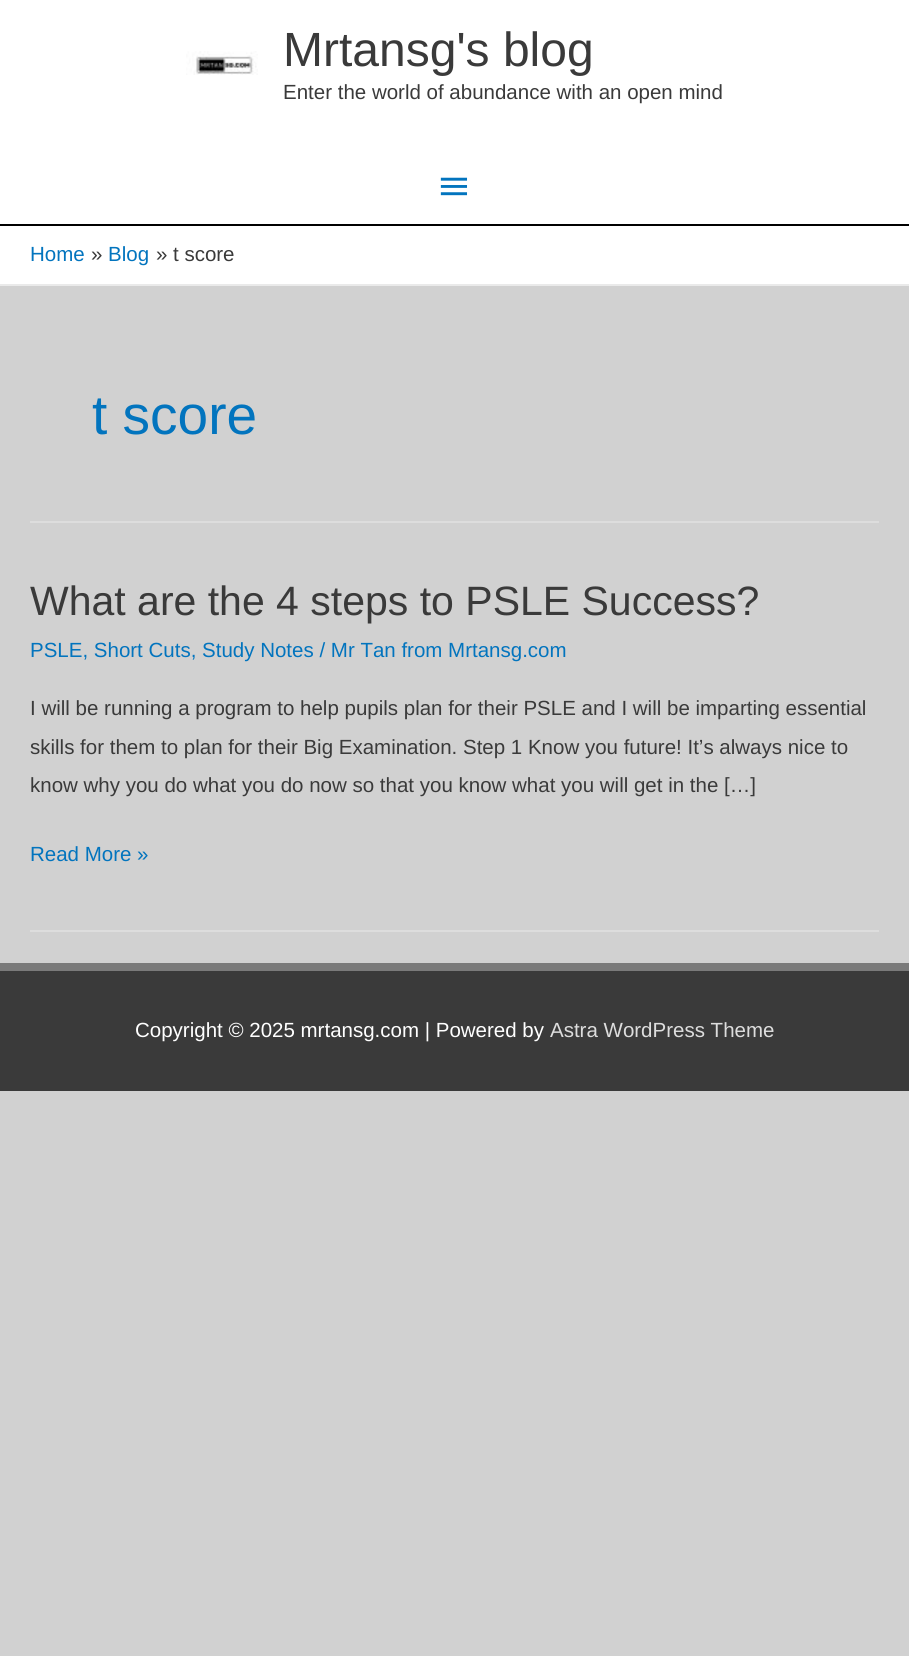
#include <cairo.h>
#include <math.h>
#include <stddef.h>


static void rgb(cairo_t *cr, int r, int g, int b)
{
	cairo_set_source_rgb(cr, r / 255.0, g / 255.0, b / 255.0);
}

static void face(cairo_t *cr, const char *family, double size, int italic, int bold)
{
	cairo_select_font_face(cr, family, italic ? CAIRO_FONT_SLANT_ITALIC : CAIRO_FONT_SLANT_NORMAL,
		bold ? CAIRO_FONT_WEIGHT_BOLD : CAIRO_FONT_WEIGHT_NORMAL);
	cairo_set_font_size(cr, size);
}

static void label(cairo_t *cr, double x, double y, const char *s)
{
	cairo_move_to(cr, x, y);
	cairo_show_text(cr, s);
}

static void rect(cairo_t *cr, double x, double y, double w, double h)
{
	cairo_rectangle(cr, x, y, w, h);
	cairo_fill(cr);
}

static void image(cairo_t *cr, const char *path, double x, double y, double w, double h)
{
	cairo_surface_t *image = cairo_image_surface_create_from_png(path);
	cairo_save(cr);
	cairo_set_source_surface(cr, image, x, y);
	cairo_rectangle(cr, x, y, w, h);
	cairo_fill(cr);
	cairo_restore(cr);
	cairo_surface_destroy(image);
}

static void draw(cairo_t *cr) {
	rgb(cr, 209, 209, 209);
	cairo_paint(cr);
	rgb(cr, 255, 255, 255);
	rect(cr, 0, 0, 909, 224);
	rgb(cr, 0, 0, 0);
	rect(cr, 0, 224, 909, 2);
	image(cr, "image0.png", 186, 51, 72, 24);
	face(cr, "Liberation Sans", 48, 0, 0);
	rgb(cr, 58, 58, 58);
	label(cr, 283, 66, "Mrtansg's blog");
	face(cr, "Liberation Sans", 20.5, 0, 0);
	label(cr, 283, 99, "Enter the world of abundance with an open mind");
	image(cr, "image1.png", 440, 177, 28, 19);
	rgb(cr, 255, 255, 255);
	rect(cr, 0, 226, 909, 58);
	rgb(cr, 234, 234, 234);
	rect(cr, 0, 284, 909, 2);
	rgb(cr, 2, 116, 190);
	label(cr, 30, 261, "Home");
	rgb(cr, 58, 58, 58);
	label(cr, 91, 261, "»");
	rgb(cr, 2, 116, 190);
	label(cr, 108, 261, "Blog");
	rgb(cr, 58, 58, 58);
	label(cr, 156, 261, "»");
	label(cr, 173, 261, "t score");
	rgb(cr, 221, 221, 221);
	rect(cr, 30, 521, 849, 2);
	face(cr, "Liberation Sans", 55, 0, 0);
	rgb(cr, 2, 116, 190);
	label(cr, 92, 434, "t score");
	rgb(cr, 221, 221, 221);
	rect(cr, 30, 930, 849, 2);
	face(cr, "Liberation Sans", 41, 0, 0);
	rgb(cr, 58, 58, 58);
	label(cr, 30, 615, "What are the 4 steps to PSLE Success?");
	face(cr, "Liberation Sans", 20.5, 0, 0);
	rgb(cr, 2, 116, 190);
	label(cr, 30, 657, "PSLE, Short Cuts, Study Notes / Mr Tan from Mrtansg.com");
	rgb(cr, 58, 58, 58);
	label(cr, 30, 715, "I will be running a program to help pupils plan for their PSLE and I will be imparting essential");
	label(cr, 30, 754, "skills for them to plan for their Big Examination. Step 1 Know you future! It’s always nice to");
	label(cr, 30, 792, "know why you do what you do now so that you know what you will get in the […]");
	rgb(cr, 2, 116, 190);
	label(cr, 30, 861, "Read More »");
	rgb(cr, 122, 122, 122);
	rect(cr, 0, 963, 909, 8);
	rgb(cr, 58, 58, 58);
	rect(cr, 0, 971, 909, 120);
	rgb(cr, 255, 255, 255);
	label(cr, 135, 1037, "Copyright © 2025 mrtansg.com | Powered by");
	rgb(cr, 221, 221, 221);
	label(cr, 550, 1037, "Astra WordPress Theme");
}

int main(void) {
	cairo_surface_t *surface = cairo_image_surface_create(CAIRO_FORMAT_RGB24, 909, 1656);
	cairo_t *cr = cairo_create(surface);
	cairo_font_options_t *options = cairo_font_options_create();
	cairo_font_options_set_hint_metrics(options, CAIRO_HINT_METRICS_OFF);
	cairo_font_options_set_hint_style(options, CAIRO_HINT_STYLE_NONE);
	cairo_set_font_options(cr, options);
	cairo_set_miter_limit(cr, 4);
	draw(cr);
	cairo_surface_write_to_png(surface, "render.png");
	cairo_font_options_destroy(options);
	cairo_destroy(cr);
	cairo_surface_destroy(surface);
	return 0;
}
